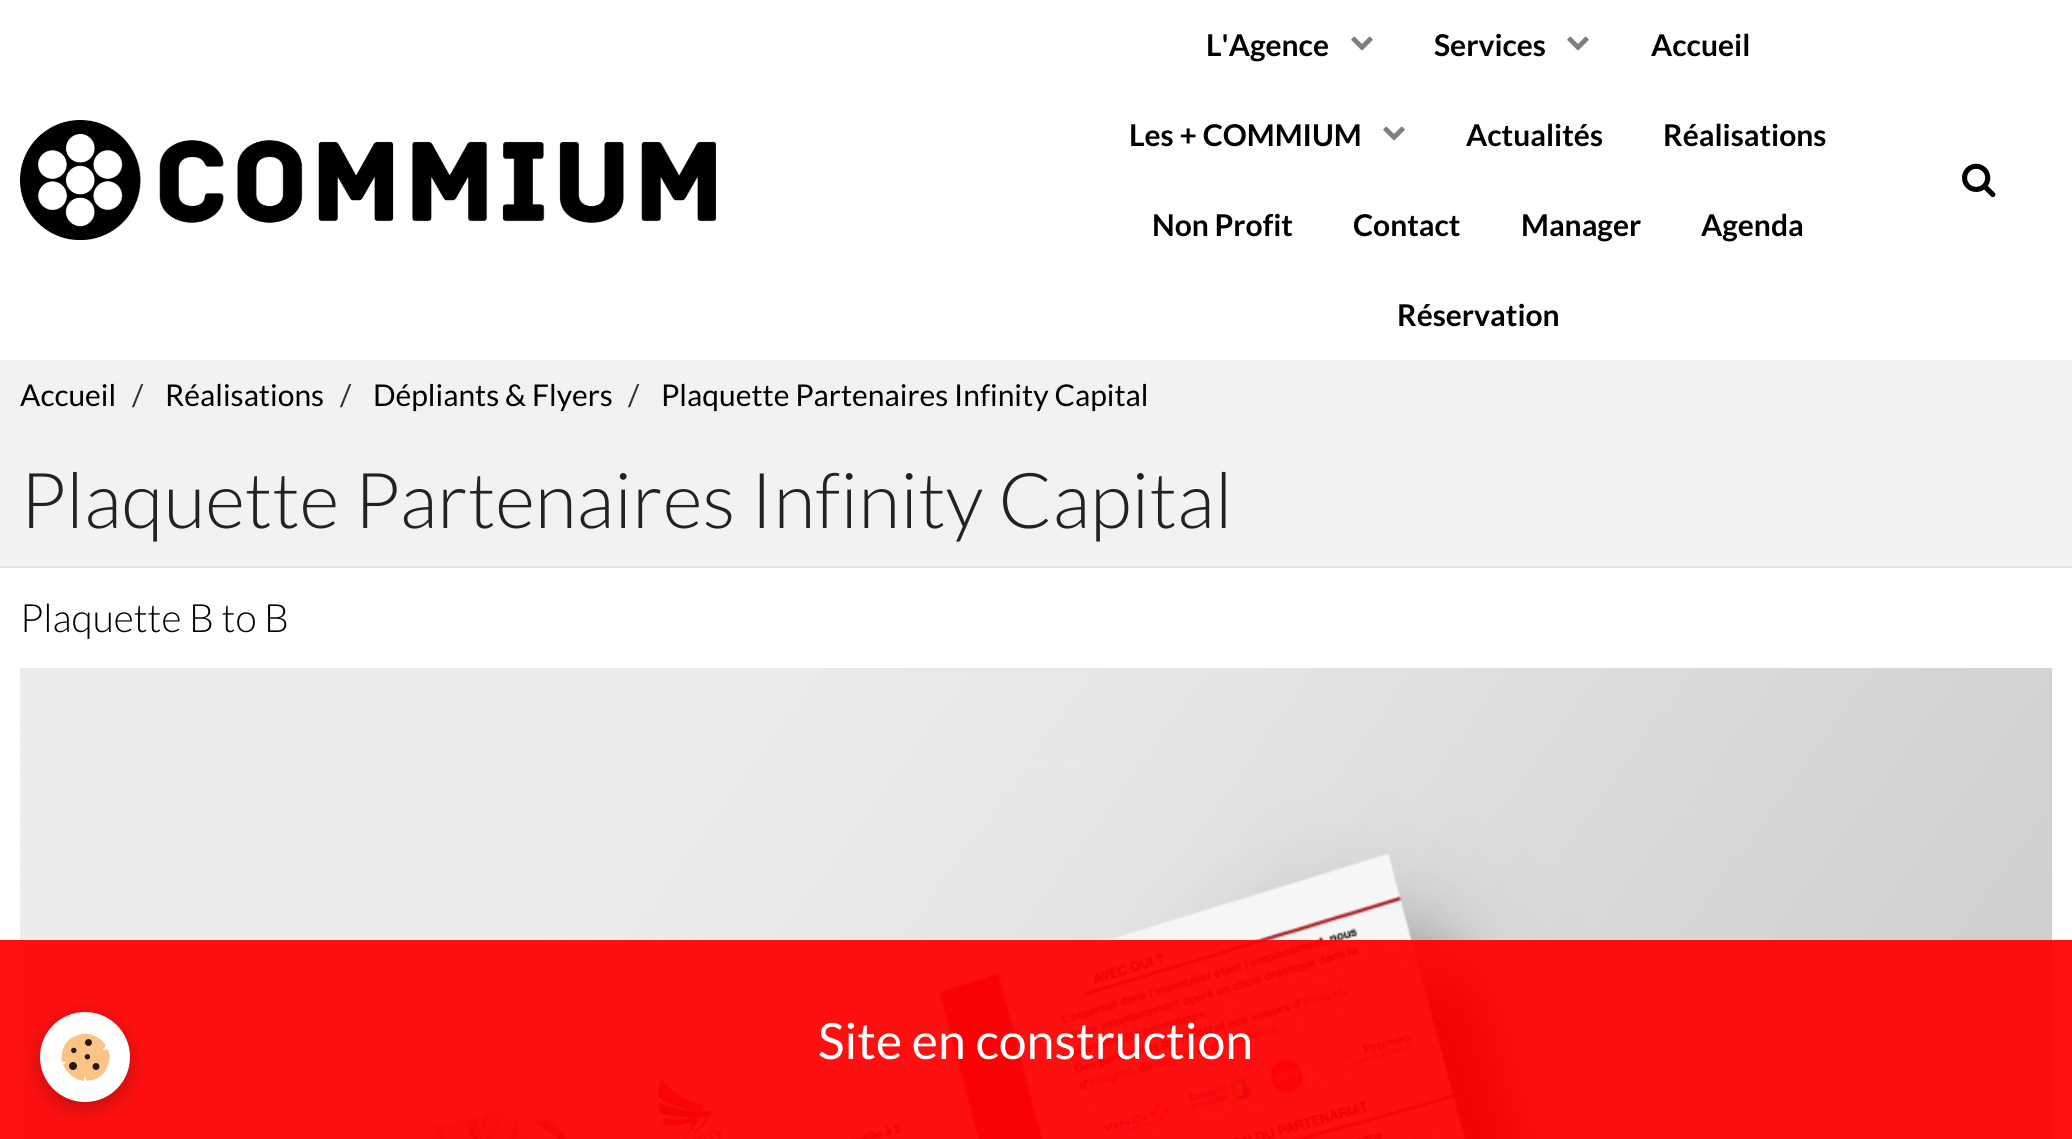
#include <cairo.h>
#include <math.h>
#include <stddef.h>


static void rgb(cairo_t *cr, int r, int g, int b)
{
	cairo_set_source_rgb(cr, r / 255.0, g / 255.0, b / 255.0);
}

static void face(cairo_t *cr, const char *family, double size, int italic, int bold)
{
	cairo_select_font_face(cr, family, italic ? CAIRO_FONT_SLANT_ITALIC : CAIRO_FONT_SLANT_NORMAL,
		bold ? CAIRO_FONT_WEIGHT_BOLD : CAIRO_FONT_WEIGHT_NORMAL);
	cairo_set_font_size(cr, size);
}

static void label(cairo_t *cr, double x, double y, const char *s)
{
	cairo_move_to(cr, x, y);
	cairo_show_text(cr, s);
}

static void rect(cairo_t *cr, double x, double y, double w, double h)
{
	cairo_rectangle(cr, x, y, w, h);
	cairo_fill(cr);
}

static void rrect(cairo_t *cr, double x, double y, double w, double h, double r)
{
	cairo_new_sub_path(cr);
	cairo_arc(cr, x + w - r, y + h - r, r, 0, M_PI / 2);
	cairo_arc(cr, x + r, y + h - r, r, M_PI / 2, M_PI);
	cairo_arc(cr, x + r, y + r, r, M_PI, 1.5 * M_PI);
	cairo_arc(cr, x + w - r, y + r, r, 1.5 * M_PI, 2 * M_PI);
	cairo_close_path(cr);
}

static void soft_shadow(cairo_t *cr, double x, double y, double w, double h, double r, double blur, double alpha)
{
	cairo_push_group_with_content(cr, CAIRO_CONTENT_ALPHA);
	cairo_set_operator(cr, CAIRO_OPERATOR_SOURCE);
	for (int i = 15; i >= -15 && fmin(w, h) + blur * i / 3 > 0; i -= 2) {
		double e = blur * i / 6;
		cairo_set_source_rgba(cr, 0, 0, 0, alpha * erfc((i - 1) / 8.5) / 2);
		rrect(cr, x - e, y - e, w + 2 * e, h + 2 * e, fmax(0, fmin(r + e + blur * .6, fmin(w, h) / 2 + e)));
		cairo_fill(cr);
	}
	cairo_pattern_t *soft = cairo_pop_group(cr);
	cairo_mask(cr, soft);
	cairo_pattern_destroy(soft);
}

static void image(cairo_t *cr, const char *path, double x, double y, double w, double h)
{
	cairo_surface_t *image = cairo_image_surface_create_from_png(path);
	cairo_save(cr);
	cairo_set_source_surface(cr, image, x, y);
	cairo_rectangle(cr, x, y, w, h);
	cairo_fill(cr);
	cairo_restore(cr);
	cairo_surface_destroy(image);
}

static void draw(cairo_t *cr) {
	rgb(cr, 255, 255, 255);
	cairo_paint(cr);
	image(cr, "image0.png", 20, 120, 696, 120);
	face(cr, "Lato", 30, 0, 1);
	rgb(cr, 0, 0, 0);
	label(cr, 1206, 56, "L'Agence");
	image(cr, "image1.png", 1351, 36, 22, 15);
	label(cr, 1434, 56, "Services");
	image(cr, "image1.png", 1567, 36, 22, 15);
	label(cr, 1651, 56, "Accueil");
	label(cr, 1129, 146, "Les + COMMIUM");
	image(cr, "image1.png", 1383, 126, 22, 15);
	label(cr, 1466, 146, "Actualités");
	label(cr, 1663, 146, "Réalisations");
	label(cr, 1152, 236, "Non Profit");
	label(cr, 1353, 236, "Contact");
	label(cr, 1521, 236, "Manager");
	label(cr, 1701, 236, "Agenda");
	label(cr, 1397, 326, "Réservation");
	image(cr, "image2.png", 1962, 163, 34, 35);
	rgb(cr, 242, 242, 242);
	rect(cr, 0, 360, 2072, 206);
	face(cr, "Lato", 30, 0, 0);
	rgb(cr, 0, 0, 0);
	label(cr, 20, 406, "Accueil");
	rgb(cr, 48, 48, 48);
	label(cr, 132, 406, "/");
	rgb(cr, 0, 0, 0);
	label(cr, 165, 406, "Réalisations");
	rgb(cr, 48, 48, 48);
	label(cr, 340, 406, "/");
	rgb(cr, 0, 0, 0);
	label(cr, 373, 406, "Dépliants & Flyers");
	rgb(cr, 48, 48, 48);
	label(cr, 628, 406, "/");
	rgb(cr, 0, 0, 0);
	label(cr, 661, 406, "Plaquette Partenaires Infinity Capital");
	rgb(cr, 230, 230, 230);
	rect(cr, 0, 566, 2072, 2);
	face(cr, "Lato Light", 77.1, 0, 0);
	rgb(cr, 34, 34, 34);
	label(cr, 20, 528, "Plaquette Partenaires Infinity Capital");
	face(cr, "Lato Light", 39, 0, 0);
	rgb(cr, 0, 0, 0);
	label(cr, 20, 632, "Plaquette B to B");
	image(cr, "image3.png", 20, 668, 2032, 471);
	cairo_set_source_rgba(cr, 1, 0, 0, 0.93);
	rect(cr, 0, 940, 2072, 199);
	rgb(cr, 0, 0, 0);
	soft_shadow(cr, 40, 1018, 90, 90, 45, 10, 0.24);
	rgb(cr, 255, 255, 255);
	cairo_arc(cr, 85, 1057, 45, 0, 2 * M_PI);
	cairo_fill(cr);
	image(cr, "image4.png", 61, 1033, 49, 48);
	face(cr, "Lato", 50, 0, 0);
	label(cr, 818, 1059, "Site en construction");
}

int main(void) {
	cairo_surface_t *surface = cairo_image_surface_create(CAIRO_FORMAT_RGB24, 2072, 1139);
	cairo_t *cr = cairo_create(surface);
	cairo_font_options_t *options = cairo_font_options_create();
	cairo_font_options_set_hint_metrics(options, CAIRO_HINT_METRICS_OFF);
	cairo_font_options_set_hint_style(options, CAIRO_HINT_STYLE_NONE);
	cairo_set_font_options(cr, options);
	cairo_set_miter_limit(cr, 4);
	draw(cr);
	cairo_surface_write_to_png(surface, "render.png");
	cairo_font_options_destroy(options);
	cairo_destroy(cr);
	cairo_surface_destroy(surface);
	return 0;
}
